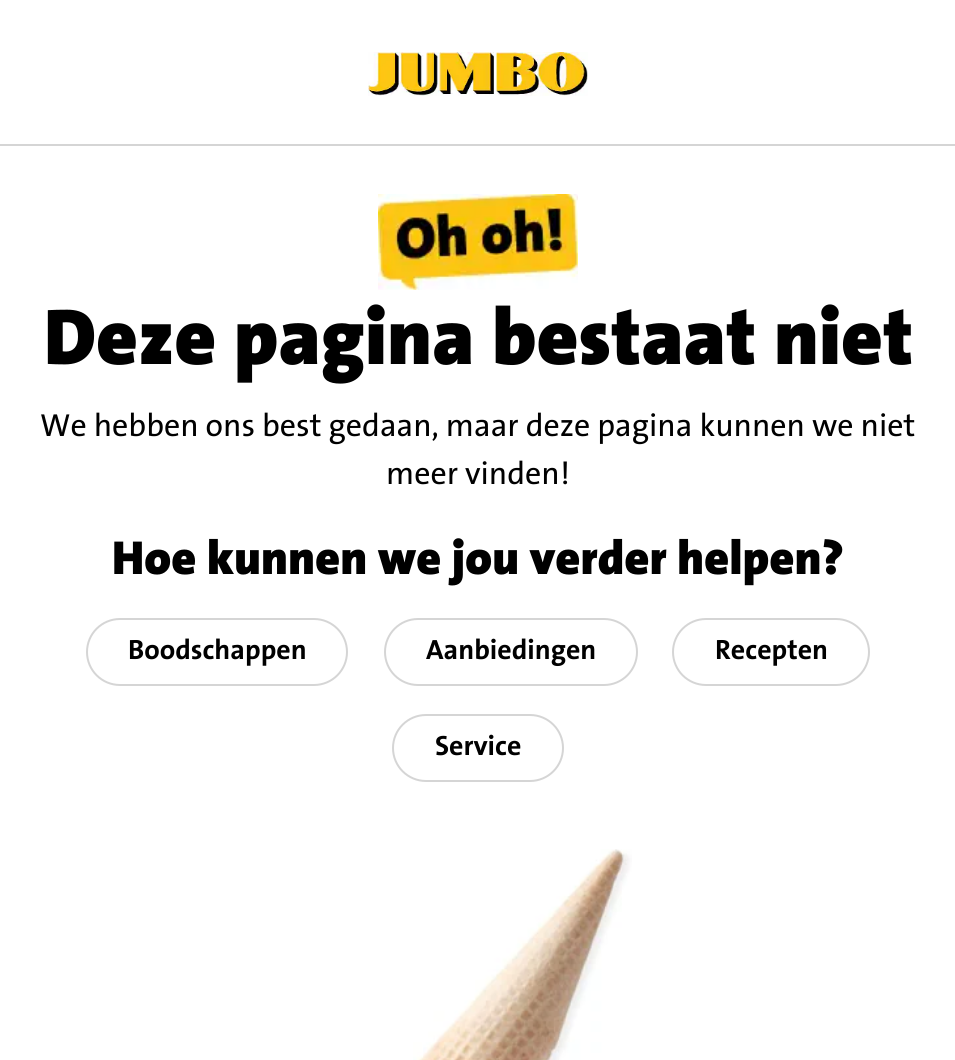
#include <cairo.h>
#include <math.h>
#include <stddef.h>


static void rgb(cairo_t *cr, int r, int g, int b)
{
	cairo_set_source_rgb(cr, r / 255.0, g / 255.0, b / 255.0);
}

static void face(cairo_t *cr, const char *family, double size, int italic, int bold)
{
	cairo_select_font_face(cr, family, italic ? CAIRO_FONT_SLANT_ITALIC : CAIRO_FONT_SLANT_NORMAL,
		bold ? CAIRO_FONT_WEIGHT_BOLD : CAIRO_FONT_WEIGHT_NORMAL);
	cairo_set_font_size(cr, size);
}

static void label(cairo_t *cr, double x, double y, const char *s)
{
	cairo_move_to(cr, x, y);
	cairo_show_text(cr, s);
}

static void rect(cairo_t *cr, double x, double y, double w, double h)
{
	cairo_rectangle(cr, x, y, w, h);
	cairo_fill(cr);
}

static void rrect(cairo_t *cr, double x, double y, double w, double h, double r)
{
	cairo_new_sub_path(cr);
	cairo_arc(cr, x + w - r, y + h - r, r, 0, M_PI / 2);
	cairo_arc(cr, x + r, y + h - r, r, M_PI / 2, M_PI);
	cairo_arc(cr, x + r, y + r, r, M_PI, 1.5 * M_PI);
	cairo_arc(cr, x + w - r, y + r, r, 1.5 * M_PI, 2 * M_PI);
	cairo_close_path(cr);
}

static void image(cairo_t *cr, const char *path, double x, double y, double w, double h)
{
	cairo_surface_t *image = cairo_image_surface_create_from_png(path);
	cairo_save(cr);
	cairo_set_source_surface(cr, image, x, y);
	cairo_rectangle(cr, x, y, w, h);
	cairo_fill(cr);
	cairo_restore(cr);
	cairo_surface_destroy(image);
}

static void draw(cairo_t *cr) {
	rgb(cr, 255, 255, 255);
	cairo_paint(cr);
	rgb(cr, 213, 213, 213);
	rect(cr, 0, 144, 955, 2);
	image(cr, "image0.png", 368, 52, 220, 44);
	image(cr, "image1.png", 378, 194, 200, 96);
	image(cr, "image2.png", 47, 304, 865, 80);
	face(cr, "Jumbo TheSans", 32, 0, 0);
	rgb(cr, 0, 0, 0);
	label(cr, 40, 436, "We hebben ons best gedaan, maar deze pagina kunnen we niet");
	label(cr, 386, 484, "meer vinden!");
	image(cr, "image3.png", 114, 538, 729, 48);
	rrect(cr, 87, 619, 260, 66, 33);
	rgb(cr, 213, 213, 213);
	cairo_stroke(cr);
	face(cr, "Jumbo TheSans", 28, 0, 1);
	rgb(cr, 0, 0, 0);
	label(cr, 128, 659, "Boodschappen");
	rrect(cr, 385, 619, 252, 66, 33);
	rgb(cr, 213, 213, 213);
	cairo_stroke(cr);
	rgb(cr, 0, 0, 0);
	label(cr, 426, 659, "Aanbiedingen");
	rrect(cr, 673, 619, 196, 66, 33);
	rgb(cr, 213, 213, 213);
	cairo_stroke(cr);
	rgb(cr, 0, 0, 0);
	label(cr, 715, 659, "Recepten");
	rrect(cr, 393, 715, 170, 66, 33);
	rgb(cr, 213, 213, 213);
	cairo_stroke(cr);
	rgb(cr, 0, 0, 0);
	label(cr, 435, 755, "Service");
	image(cr, "image4.png", 413, 849, 219, 211);
}

int main(void) {
	cairo_surface_t *surface = cairo_image_surface_create(CAIRO_FORMAT_RGB24, 955, 1060);
	cairo_t *cr = cairo_create(surface);
	cairo_font_options_t *options = cairo_font_options_create();
	cairo_font_options_set_hint_metrics(options, CAIRO_HINT_METRICS_OFF);
	cairo_font_options_set_hint_style(options, CAIRO_HINT_STYLE_NONE);
	cairo_set_font_options(cr, options);
	cairo_set_miter_limit(cr, 4);
	draw(cr);
	cairo_surface_write_to_png(surface, "render.png");
	cairo_font_options_destroy(options);
	cairo_destroy(cr);
	cairo_surface_destroy(surface);
	return 0;
}
